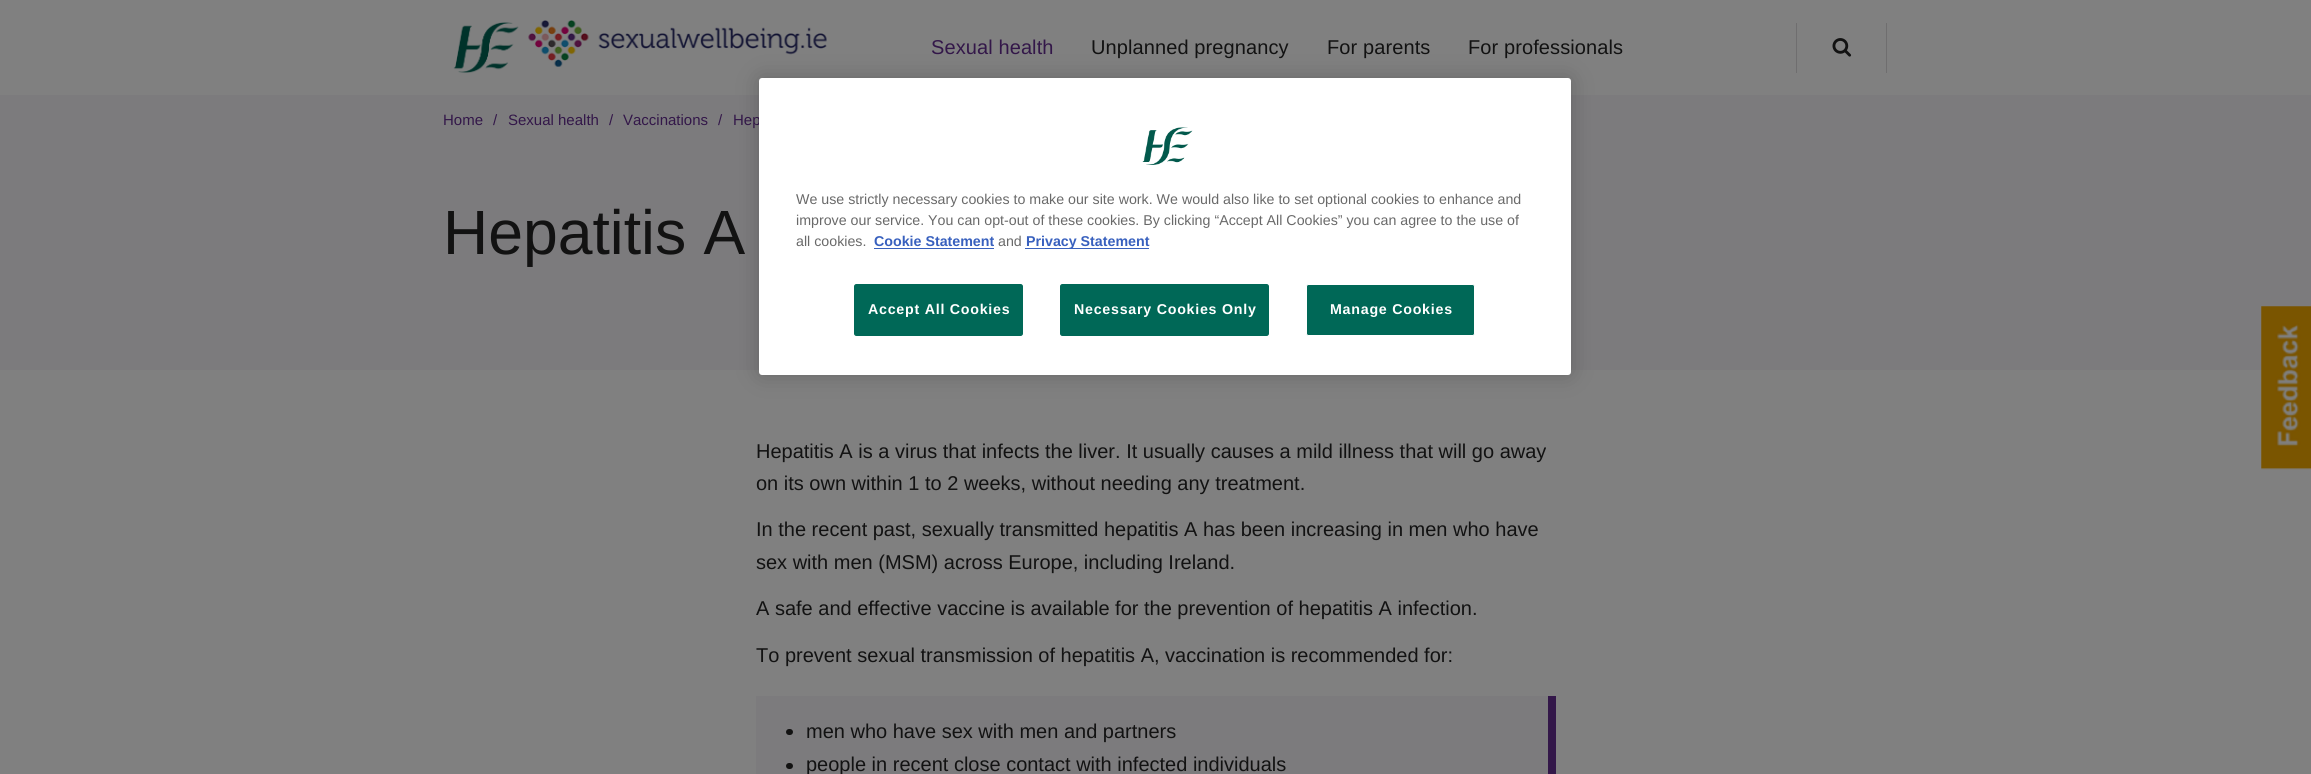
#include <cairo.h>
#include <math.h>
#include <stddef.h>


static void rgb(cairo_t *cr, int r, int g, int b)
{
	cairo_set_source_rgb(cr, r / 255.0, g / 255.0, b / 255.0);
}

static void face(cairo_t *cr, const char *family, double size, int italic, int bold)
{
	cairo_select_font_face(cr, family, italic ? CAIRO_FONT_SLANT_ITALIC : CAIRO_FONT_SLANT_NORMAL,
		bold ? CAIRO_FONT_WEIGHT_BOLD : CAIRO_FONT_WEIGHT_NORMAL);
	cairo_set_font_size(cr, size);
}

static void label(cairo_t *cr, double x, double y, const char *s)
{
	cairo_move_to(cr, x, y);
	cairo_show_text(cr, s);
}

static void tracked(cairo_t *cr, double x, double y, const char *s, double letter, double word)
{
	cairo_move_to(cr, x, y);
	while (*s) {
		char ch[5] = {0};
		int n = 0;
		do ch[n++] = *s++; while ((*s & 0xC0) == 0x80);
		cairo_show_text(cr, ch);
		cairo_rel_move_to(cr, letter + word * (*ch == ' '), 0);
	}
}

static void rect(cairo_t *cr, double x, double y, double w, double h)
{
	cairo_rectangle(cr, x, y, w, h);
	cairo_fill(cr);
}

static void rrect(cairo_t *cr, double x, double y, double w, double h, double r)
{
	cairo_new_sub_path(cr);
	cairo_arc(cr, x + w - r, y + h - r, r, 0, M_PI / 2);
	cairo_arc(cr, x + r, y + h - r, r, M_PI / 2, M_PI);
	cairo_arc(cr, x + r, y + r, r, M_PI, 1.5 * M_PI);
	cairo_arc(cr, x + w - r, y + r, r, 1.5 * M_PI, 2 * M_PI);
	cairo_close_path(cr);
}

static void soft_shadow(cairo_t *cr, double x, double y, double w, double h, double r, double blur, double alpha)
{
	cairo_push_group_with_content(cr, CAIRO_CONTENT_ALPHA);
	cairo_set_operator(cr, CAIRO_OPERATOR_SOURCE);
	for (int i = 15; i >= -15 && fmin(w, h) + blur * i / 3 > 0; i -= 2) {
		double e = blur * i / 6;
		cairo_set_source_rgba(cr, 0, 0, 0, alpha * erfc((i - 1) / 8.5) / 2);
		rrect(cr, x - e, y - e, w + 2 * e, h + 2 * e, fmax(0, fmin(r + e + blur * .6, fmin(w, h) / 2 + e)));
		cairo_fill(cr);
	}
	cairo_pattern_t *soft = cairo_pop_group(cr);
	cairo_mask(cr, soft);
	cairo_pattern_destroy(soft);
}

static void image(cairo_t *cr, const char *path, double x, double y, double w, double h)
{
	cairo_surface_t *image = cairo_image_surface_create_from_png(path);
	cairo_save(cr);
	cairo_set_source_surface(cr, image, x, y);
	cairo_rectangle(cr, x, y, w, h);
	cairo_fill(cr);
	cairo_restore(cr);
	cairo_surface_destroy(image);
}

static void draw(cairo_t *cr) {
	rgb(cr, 128, 128, 128);
	cairo_paint(cr);
	image(cr, "image0.png", 453, 22, 66, 51);
	image(cr, "image1.png", 528, 20, 299, 47);
	face(cr, "Liberation Sans", 20, 0, 0);
	rgb(cr, 51, 23, 73);
	tracked(cr, 931, 54, "Sexual health", 0.1, 0);
	rgb(cr, 18, 18, 18);
	tracked(cr, 1091, 54, "Unplanned pregnancy", 0.1, 0);
	tracked(cr, 1327, 54, "For parents", 0.1, 0);
	tracked(cr, 1468, 54, "For professionals", 0.1, 0);
	rgb(cr, 111, 110, 111);
	rect(cr, 1796, 23, 1, 50);
	image(cr, "image2.png", 1832, 38, 20, 19);
	rect(cr, 1886, 23, 1, 50);
	rgb(cr, 124, 123, 125);
	rect(cr, 0, 95, 2311, 275);
	face(cr, "Liberation Sans", 15, 0, 0);
	rgb(cr, 51, 23, 73);
	label(cr, 443, 125, "Home");
	label(cr, 493, 125, "/");
	label(cr, 508, 125, "Sexual health");
	label(cr, 609, 125, "/");
	label(cr, 623, 125, "Vaccinations");
	label(cr, 718, 125, "/");
	label(cr, 733, 125, "Hep");
	face(cr, "Liberation Sans", 62.5, 0, 0);
	rgb(cr, 18, 18, 18);
	label(cr, 443, 254, "Hepatitis A");
	face(cr, "Liberation Sans", 20, 0, 0);
	label(cr, 756, 458, "Hepatitis A is a virus that infects the liver. It usually causes a mild illness that will go away");
	label(cr, 756, 490, "on its own within 1 to 2 weeks, without needing any treatment.");
	label(cr, 756, 536, "In the recent past, sexually transmitted hepatitis A has been increasing in men who have");
	label(cr, 756, 569, "sex with men (MSM) across Europe, including Ireland.");
	label(cr, 756, 615, "A safe and effective vaccine is available for the prevention of hepatitis A infection.");
	label(cr, 756, 662, "To prevent sexual transmission of hepatitis A, vaccination is recommended for:");
	rgb(cr, 124, 123, 125);
	rect(cr, 756, 696, 792, 78);
	rgb(cr, 51, 23, 73);
	rect(cr, 1548, 696, 8, 78);
	rgb(cr, 18, 18, 18);
	rrect(cr, 786, 729, 7, 6, 3);
	cairo_fill(cr);
	label(cr, 806, 738, "men who have sex with men and partners");
	rrect(cr, 786, 763, 7, 6, 3);
	cairo_fill(cr);
	label(cr, 806, 771, "people in recent close contact with infected individuals");
	rgb(cr, 0, 0, 0);
	soft_shadow(cr, 759, 78, 812, 297, 3, 11, 0.2);
	rgb(cr, 255, 255, 255);
	rrect(cr, 759, 78, 812, 297, 3);
	cairo_fill(cr);
	image(cr, "image3.png", 1142, 127, 51, 38);
	face(cr, "Liberation Sans", 14.23, 0, 0);
	rgb(cr, 105, 105, 105);
	label(cr, 796, 204, "We use strictly necessary cookies to make our site work. We would also like to set optional cookies to enhance and");
	label(cr, 796, 225, "improve our service. You can opt-out of these cookies. By clicking “Accept All Cookies” you can agree to the use of");
	label(cr, 796, 246, "all cookies.");
	face(cr, "Liberation Sans", 14.23, 0, 1);
	rgb(cr, 56, 96, 190);
	label(cr, 874, 246, "Cookie Statement");
	rect(cr, 874, 248, 120, 1);
	face(cr, "Liberation Sans", 14.23, 0, 0);
	rgb(cr, 105, 105, 105);
	label(cr, 998, 246, "and");
	rgb(cr, 56, 96, 190);
	rect(cr, 1025, 248, 124, 1);
	face(cr, "Liberation Sans", 14.23, 0, 1);
	label(cr, 1026, 246, "Privacy Statement");
	rgb(cr, 0, 104, 87);
	rrect(cr, 854.5, 284.5, 168, 51, 2);
	cairo_fill_preserve(cr);
	cairo_set_line_width(cr, 1);
	cairo_stroke(cr);
	rgb(cr, 255, 255, 255);
	tracked(cr, 868, 314, "Accept All Cookies", 0.75, 0);
	rgb(cr, 0, 104, 87);
	rrect(cr, 1060.5, 284.5, 208, 51, 2);
	cairo_fill_preserve(cr);
	cairo_stroke(cr);
	rgb(cr, 255, 255, 255);
	tracked(cr, 1074, 314, "Necessary Cookies Only", 0.75, 0);
	rgb(cr, 0, 104, 87);
	rrect(cr, 1306.5, 284.5, 168, 51, 2);
	cairo_fill_preserve(cr);
	rgb(cr, 255, 255, 255);
	cairo_stroke(cr);
	tracked(cr, 1330, 314, "Manage Cookies", 0.75, 0);
	image(cr, "image4.png", 2261, 306, 50, 164);
}

int main(void) {
	cairo_surface_t *surface = cairo_image_surface_create(CAIRO_FORMAT_RGB24, 2311, 774);
	cairo_t *cr = cairo_create(surface);
	cairo_font_options_t *options = cairo_font_options_create();
	cairo_font_options_set_hint_metrics(options, CAIRO_HINT_METRICS_OFF);
	cairo_font_options_set_hint_style(options, CAIRO_HINT_STYLE_NONE);
	cairo_set_font_options(cr, options);
	cairo_set_miter_limit(cr, 4);
	draw(cr);
	cairo_surface_write_to_png(surface, "render.png");
	cairo_font_options_destroy(options);
	cairo_destroy(cr);
	cairo_surface_destroy(surface);
	return 0;
}
